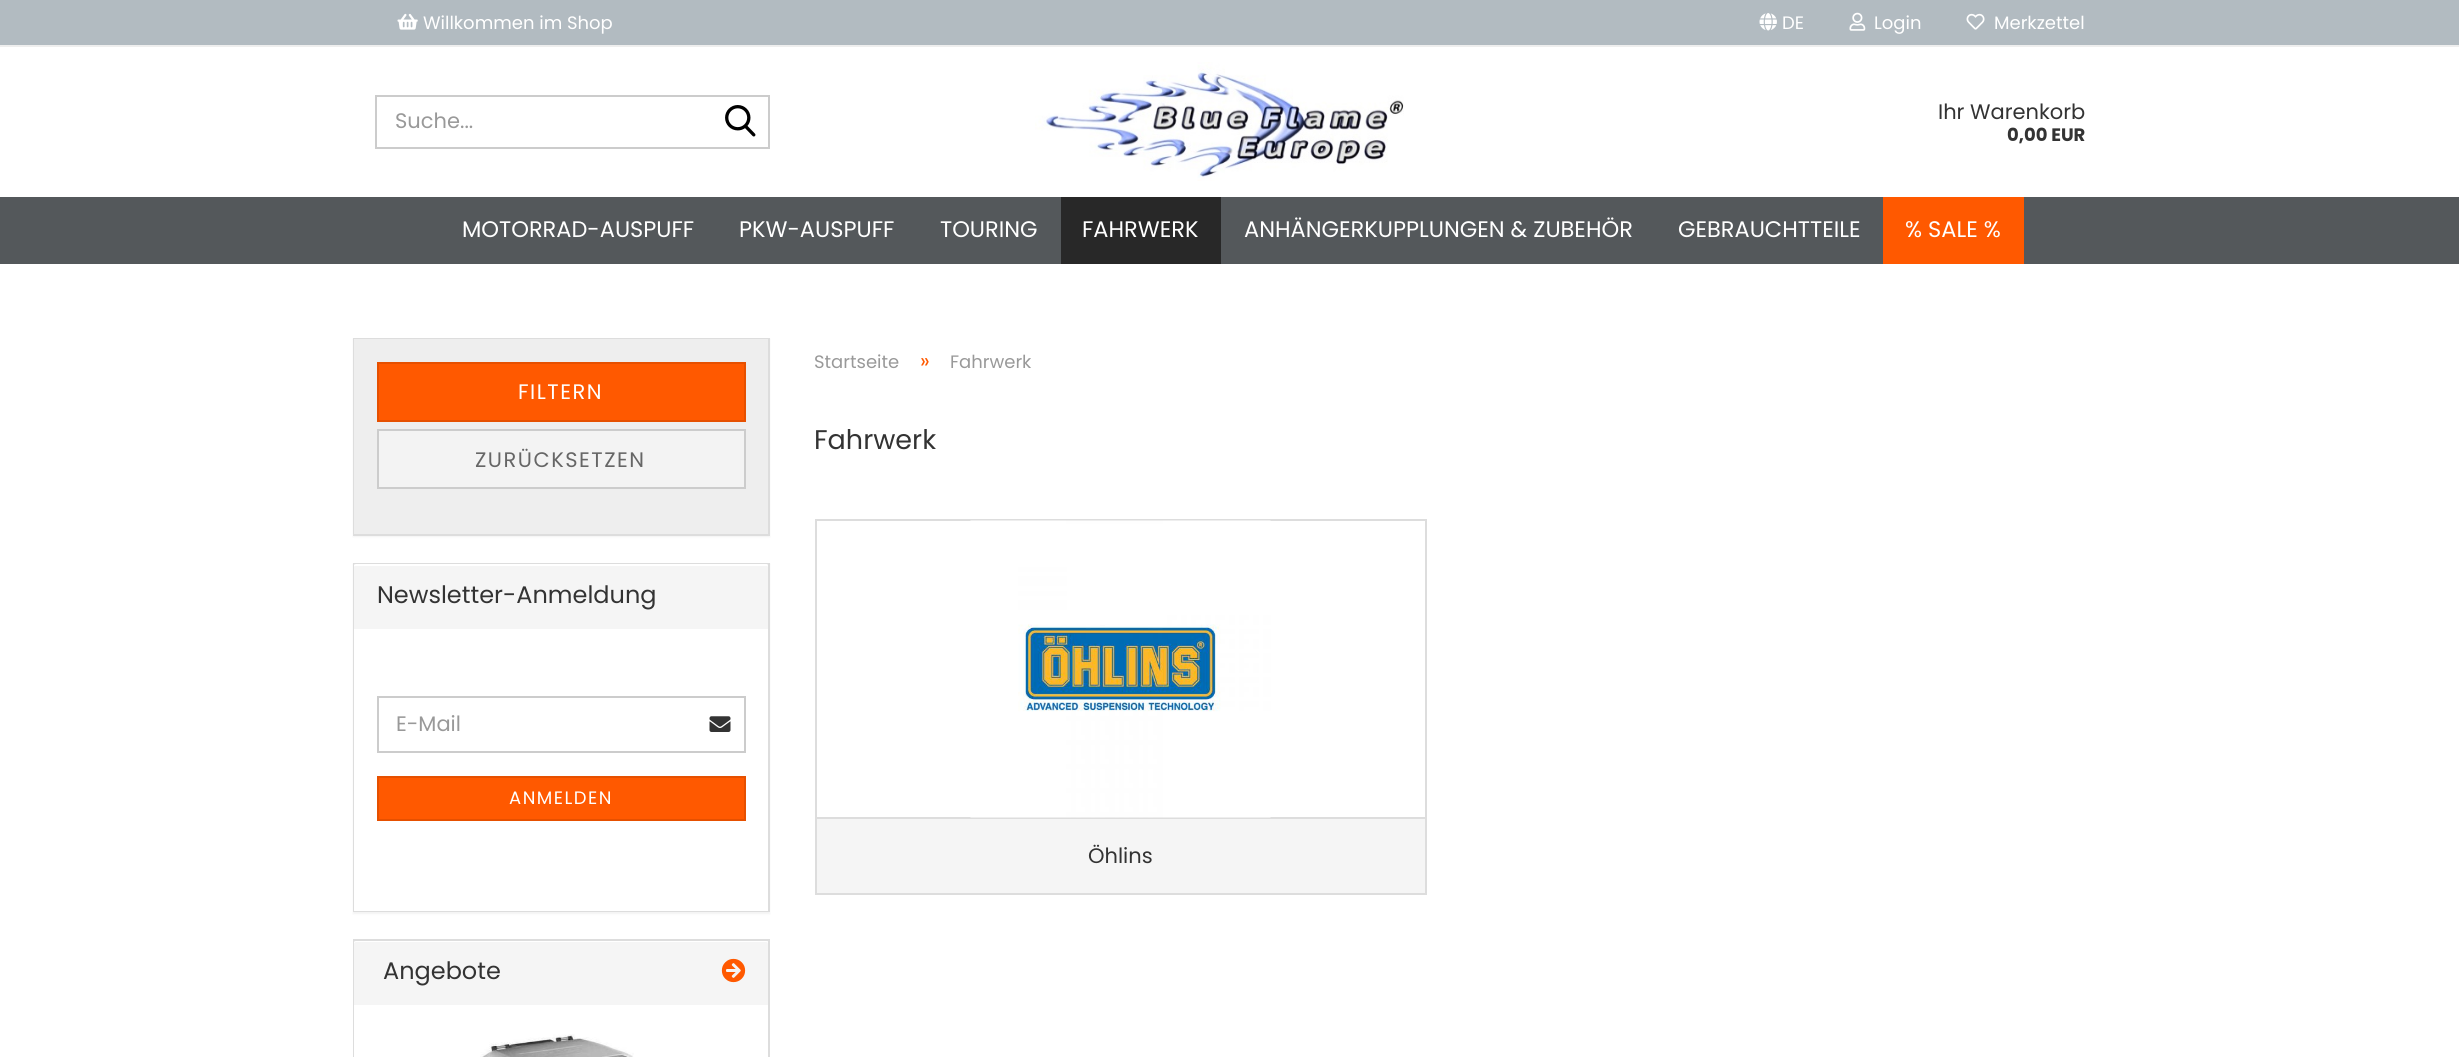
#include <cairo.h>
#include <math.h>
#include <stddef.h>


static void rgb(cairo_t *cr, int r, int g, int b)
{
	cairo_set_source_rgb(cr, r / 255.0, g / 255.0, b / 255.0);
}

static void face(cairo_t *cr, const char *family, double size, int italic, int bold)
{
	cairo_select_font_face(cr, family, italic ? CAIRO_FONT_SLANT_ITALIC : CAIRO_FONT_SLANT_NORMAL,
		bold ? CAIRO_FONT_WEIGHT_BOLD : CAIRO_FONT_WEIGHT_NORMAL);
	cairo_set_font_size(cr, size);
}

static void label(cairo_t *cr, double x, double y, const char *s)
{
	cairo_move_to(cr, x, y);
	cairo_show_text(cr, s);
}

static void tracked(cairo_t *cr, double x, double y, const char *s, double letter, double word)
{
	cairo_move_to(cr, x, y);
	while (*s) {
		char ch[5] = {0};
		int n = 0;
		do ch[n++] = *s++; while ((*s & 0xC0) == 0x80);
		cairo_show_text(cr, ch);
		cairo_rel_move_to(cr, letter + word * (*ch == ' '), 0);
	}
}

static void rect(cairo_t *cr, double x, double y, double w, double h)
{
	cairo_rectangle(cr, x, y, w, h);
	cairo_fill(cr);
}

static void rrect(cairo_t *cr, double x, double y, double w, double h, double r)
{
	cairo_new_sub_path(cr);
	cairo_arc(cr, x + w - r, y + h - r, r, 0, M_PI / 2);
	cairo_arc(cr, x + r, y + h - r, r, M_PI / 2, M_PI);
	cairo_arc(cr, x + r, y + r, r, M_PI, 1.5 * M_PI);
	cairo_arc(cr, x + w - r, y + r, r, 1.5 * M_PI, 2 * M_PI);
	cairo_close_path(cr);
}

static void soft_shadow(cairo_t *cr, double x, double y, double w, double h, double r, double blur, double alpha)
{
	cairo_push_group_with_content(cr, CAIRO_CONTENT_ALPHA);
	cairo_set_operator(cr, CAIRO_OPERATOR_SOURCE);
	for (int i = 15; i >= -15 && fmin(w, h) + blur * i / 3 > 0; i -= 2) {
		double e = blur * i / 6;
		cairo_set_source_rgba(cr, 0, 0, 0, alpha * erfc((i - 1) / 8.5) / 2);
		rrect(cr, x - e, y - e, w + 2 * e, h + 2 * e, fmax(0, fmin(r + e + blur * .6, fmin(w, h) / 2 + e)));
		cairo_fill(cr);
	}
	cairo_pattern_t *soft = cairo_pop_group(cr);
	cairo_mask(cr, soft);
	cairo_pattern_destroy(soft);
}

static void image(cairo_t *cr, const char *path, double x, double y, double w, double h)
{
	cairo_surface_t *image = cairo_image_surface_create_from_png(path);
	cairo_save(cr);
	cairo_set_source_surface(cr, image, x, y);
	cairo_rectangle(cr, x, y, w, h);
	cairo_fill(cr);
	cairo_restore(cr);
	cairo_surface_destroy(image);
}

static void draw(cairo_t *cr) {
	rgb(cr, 255, 255, 255);
	cairo_paint(cr);
	rgb(cr, 178, 187, 193);
	rect(cr, 0, 0, 2459, 45);
	rgb(cr, 238, 238, 238);
	rect(cr, 0, 45, 2459, 2);
	image(cr, "image0.png", 397, 13, 21, 17);
	face(cr, "Poppins", 18, 0, 0);
	rgb(cr, 255, 255, 255);
	label(cr, 423, 29, "Willkommen im Shop");
	image(cr, "image1.png", 1759, 13, 18, 18);
	label(cr, 1782, 29, "DE");
	image(cr, "image2.png", 1849, 12, 17, 19);
	label(cr, 1874, 29, "Login");
	image(cr, "image3.png", 1966, 13, 19, 17);
	label(cr, 1994, 29, "Merkzettel");
	cairo_rectangle(cr, 376, 96, 393, 52);
	rgb(cr, 204, 204, 204);
	cairo_stroke(cr);
	face(cr, "Poppins", 21, 0, 0);
	rgb(cr, 153, 153, 153);
	label(cr, 395, 128, "Suche...");
	image(cr, "image4.png", 725, 105, 31, 32);
	image(cr, "image5.png", 1035, 62, 369, 119);
	rgb(cr, 51, 51, 51);
	label(cr, 1938, 119, "Ihr Warenkorb");
	face(cr, "Poppins", 18, 0, 1);
	label(cr, 2007, 141, "0,00 EUR");
	rgb(cr, 84, 88, 91);
	rect(cr, 0, 197, 2459, 67);
	face(cr, "Poppins", 22.5, 0, 0);
	rgb(cr, 255, 255, 255);
	label(cr, 462, 237, "MOTORRAD-AUSPUFF");
	label(cr, 739, 237, "PKW-AUSPUFF");
	label(cr, 940, 237, "TOURING");
	rgb(cr, 40, 40, 40);
	rect(cr, 1061, 197, 160, 67);
	rgb(cr, 255, 255, 255);
	label(cr, 1082, 237, "FAHRWERK");
	label(cr, 1244, 237, "ANHÄNGERKUPPLUNGEN & ZUBEHÖR");
	label(cr, 1678, 237, "GEBRAUCHTTEILE");
	rgb(cr, 255, 89, 0);
	rect(cr, 1883, 197, 141, 67);
	rgb(cr, 255, 255, 255);
	label(cr, 1905, 237, "% SALE %");
	rgb(cr, 0, 0, 0);
	soft_shadow(cr, 353, 339, 417, 198, 0, 1, 0.05);
	cairo_rectangle(cr, 354, 339, 415, 196);
	rgb(cr, 221, 221, 221);
	cairo_stroke(cr);
	rgb(cr, 238, 238, 238);
	rect(cr, 354, 339, 414, 195);
	rgb(cr, 255, 89, 0);
	cairo_rectangle(cr, 378, 363, 367, 58);
	cairo_fill_preserve(cr);
	rgb(cr, 230, 80, 0);
	cairo_stroke(cr);
	face(cr, "Poppins", 21, 0, 0);
	rgb(cr, 255, 255, 255);
	tracked(cr, 518, 399, "FILTERN", 1.5, 0);
	rgb(cr, 243, 243, 243);
	cairo_rectangle(cr, 378, 430, 367, 58);
	cairo_fill_preserve(cr);
	rgb(cr, 204, 204, 204);
	cairo_stroke(cr);
	rgb(cr, 102, 102, 102);
	tracked(cr, 475, 467, "ZURÜCKSETZEN", 1.5, 0);
	rgb(cr, 0, 0, 0);
	soft_shadow(cr, 353, 564, 417, 350, 0, 1, 0.05);
	cairo_rectangle(cr, 354, 564, 415, 347);
	rgb(cr, 221, 221, 221);
	cairo_stroke(cr);
	rgb(cr, 245, 245, 245);
	cairo_new_path(cr);
	cairo_move_to(cr, 355.5, 564);
	cairo_line_to(cr, 766.5, 564);
	cairo_curve_to(cr, 767.5, 564, 768, 564.5, 768, 565.5);
	cairo_line_to(cr, 768, 629);
	cairo_line_to(cr, 354, 629);
	cairo_line_to(cr, 354, 565.5);
	cairo_curve_to(cr, 354, 564.5, 354.5, 564, 355.5, 564);
	cairo_close_path(cr);
	cairo_fill(cr);
	rgb(cr, 255, 255, 255);
	cairo_new_path(cr);
	cairo_move_to(cr, 356, 566);
	cairo_line_to(cr, 766, 566);
	cairo_curve_to(cr, 767, 566, 768, 566, 768, 567);
	cairo_curve_to(cr, 768, 566, 768, 564, 766, 564);
	cairo_line_to(cr, 356, 564);
	cairo_line_to(cr, 354, 565);
	cairo_line_to(cr, 354, 567);
	cairo_curve_to(cr, 354, 566, 355, 566, 356, 566);
	cairo_close_path(cr);
	cairo_fill(cr);
	face(cr, "Poppins", 24, 0, 0);
	rgb(cr, 51, 51, 51);
	label(cr, 377, 603, "Newsletter-Anmeldung");
	rgb(cr, 255, 255, 255);
	rect(cr, 354, 629, 414, 282);
	cairo_rectangle(cr, 378, 697, 367, 55);
	rgb(cr, 204, 204, 204);
	cairo_stroke(cr);
	face(cr, "Poppins", 21, 0, 0);
	rgb(cr, 153, 153, 153);
	label(cr, 396, 731, "E-Mail");
	image(cr, "image6.png", 709, 716, 22, 16);
	rgb(cr, 255, 89, 0);
	cairo_rectangle(cr, 378, 777, 367, 43);
	cairo_fill_preserve(cr);
	rgb(cr, 230, 80, 0);
	cairo_stroke(cr);
	face(cr, "Poppins", 18, 0, 0);
	rgb(cr, 255, 255, 255);
	tracked(cr, 509, 804, "ANMELDEN", 1.5, 0);
	cairo_rectangle(cr, 354, 940, 415, 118);
	rgb(cr, 221, 221, 221);
	cairo_stroke(cr);
	rgb(cr, 245, 245, 245);
	cairo_new_path(cr);
	cairo_move_to(cr, 355.5, 941);
	cairo_line_to(cr, 766.5, 941);
	cairo_curve_to(cr, 767.5, 941, 768, 941.5, 768, 942.5);
	cairo_line_to(cr, 768, 1005);
	cairo_line_to(cr, 354, 1005);
	cairo_line_to(cr, 354, 942.5);
	cairo_curve_to(cr, 354, 941.5, 354.5, 941, 355.5, 941);
	cairo_close_path(cr);
	cairo_fill(cr);
	rgb(cr, 255, 255, 255);
	cairo_new_path(cr);
	cairo_move_to(cr, 356, 942);
	cairo_line_to(cr, 766, 942);
	cairo_curve_to(cr, 767, 942, 768, 943, 768, 944);
	cairo_curve_to(cr, 768, 943, 768, 941, 766, 941);
	cairo_line_to(cr, 356, 941);
	cairo_line_to(cr, 354, 942);
	cairo_line_to(cr, 354, 944);
	cairo_curve_to(cr, 354, 943, 355, 942, 356, 942);
	cairo_close_path(cr);
	cairo_fill(cr);
	face(cr, "Poppins", 24, 0, 0);
	rgb(cr, 51, 51, 51);
	label(cr, 383, 979, "Angebote");
	image(cr, "image7.png", 721, 958, 25, 25);
	rgb(cr, 255, 255, 255);
	rect(cr, 354, 1005, 1, 52);
	image(cr, "image8.png", 480, 1034, 154, 23);
	face(cr, "Poppins", 18, 0, 0);
	rgb(cr, 153, 153, 153);
	label(cr, 814, 368, "Startseite");
	face(cr, "Poppins", 21, 0, 0);
	rgb(cr, 255, 89, 0);
	label(cr, 920, 368, "»");
	face(cr, "Poppins", 18, 0, 0);
	rgb(cr, 153, 153, 153);
	label(cr, 950, 368, "Fahrwerk");
	face(cr, "Poppins", 27, 0, 0);
	rgb(cr, 51, 51, 51);
	label(cr, 814, 449, "Fahrwerk");
	cairo_rectangle(cr, 816, 520, 610, 298);
	rgb(cr, 221, 221, 221);
	cairo_stroke(cr);
	image(cr, "image9.png", 970, 520, 301, 298);
	rgb(cr, 245, 245, 245);
	rect(cr, 817, 819, 608, 74);
	rgb(cr, 221, 221, 221);
	rect(cr, 1425, 819, 2, 75);
	rect(cr, 815, 893, 612, 2);
	rect(cr, 815, 819, 2, 75);
	face(cr, "Poppins", 21, 0, 0);
	rgb(cr, 51, 51, 51);
	label(cr, 1088, 863, "Öhlins");
}

int main(void) {
	cairo_surface_t *surface = cairo_image_surface_create(CAIRO_FORMAT_RGB24, 2459, 1057);
	cairo_t *cr = cairo_create(surface);
	cairo_font_options_t *options = cairo_font_options_create();
	cairo_font_options_set_hint_metrics(options, CAIRO_HINT_METRICS_OFF);
	cairo_font_options_set_hint_style(options, CAIRO_HINT_STYLE_NONE);
	cairo_set_font_options(cr, options);
	cairo_set_miter_limit(cr, 4);
	draw(cr);
	cairo_surface_write_to_png(surface, "render.png");
	cairo_font_options_destroy(options);
	cairo_destroy(cr);
	cairo_surface_destroy(surface);
	return 0;
}
